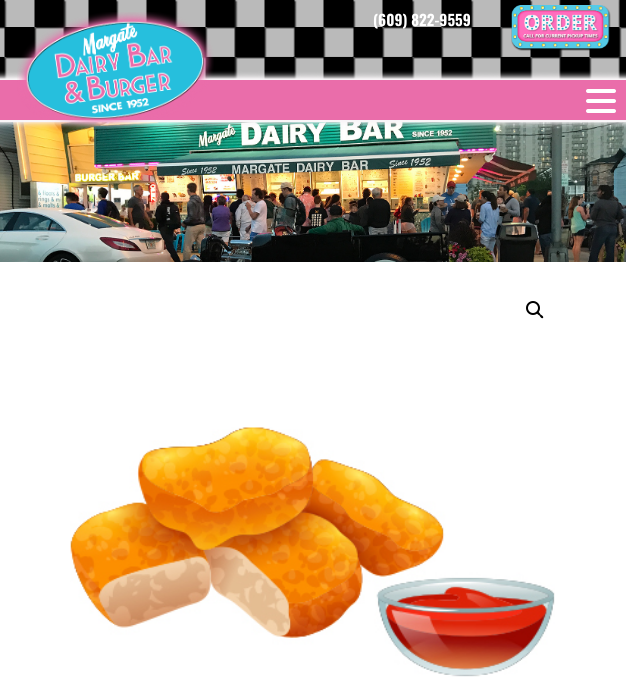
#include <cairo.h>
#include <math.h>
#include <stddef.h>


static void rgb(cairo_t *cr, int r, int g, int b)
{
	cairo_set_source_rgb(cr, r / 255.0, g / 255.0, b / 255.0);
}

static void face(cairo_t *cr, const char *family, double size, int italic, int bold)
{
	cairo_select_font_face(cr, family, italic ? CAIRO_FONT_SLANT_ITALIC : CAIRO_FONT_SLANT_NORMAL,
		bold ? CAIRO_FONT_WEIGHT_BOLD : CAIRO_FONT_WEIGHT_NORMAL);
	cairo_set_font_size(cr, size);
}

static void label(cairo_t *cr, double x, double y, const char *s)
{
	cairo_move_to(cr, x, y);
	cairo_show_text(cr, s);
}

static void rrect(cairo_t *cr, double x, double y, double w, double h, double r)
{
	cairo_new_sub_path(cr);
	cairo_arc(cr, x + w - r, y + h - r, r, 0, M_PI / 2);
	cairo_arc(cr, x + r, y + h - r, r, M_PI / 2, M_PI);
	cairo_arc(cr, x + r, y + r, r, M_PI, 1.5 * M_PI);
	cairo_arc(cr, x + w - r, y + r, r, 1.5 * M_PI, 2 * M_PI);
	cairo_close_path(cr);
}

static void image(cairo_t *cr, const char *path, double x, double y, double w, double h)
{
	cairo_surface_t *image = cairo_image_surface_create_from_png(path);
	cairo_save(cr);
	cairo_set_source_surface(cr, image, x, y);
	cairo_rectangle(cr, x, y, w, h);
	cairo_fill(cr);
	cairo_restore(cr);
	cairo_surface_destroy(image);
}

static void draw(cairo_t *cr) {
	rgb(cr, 255, 255, 255);
	cairo_paint(cr);
	image(cr, "image3.png", 0, 122, 626, 140);
	image(cr, "image0.png", 0, 0, 626, 129);
	image(cr, "image1.png", 17, 12, 197, 117);
	face(cr, "Oswald", 15, 0, 1);
	rgb(cr, 255, 255, 255);
	label(cr, 373, 26, "(609) 822-9559");
	image(cr, "image2.png", 511, 5, 100, 46);
	cairo_arc(cr, 533, 308, 6, 0, 2 * M_PI);
	rgb(cr, 0, 0, 0);
	cairo_stroke(cr);
	cairo_new_path(cr);
	cairo_move_to(cr, 537, 312);
	cairo_curve_to(cr, 538.5, 311, 540, 313.5, 540.5, 314.5);
	cairo_curve_to(cr, 541.5, 315, 544, 316.5, 543, 318);
	cairo_curve_to(cr, 541.5, 319, 540, 316.5, 539.5, 315.5);
	cairo_curve_to(cr, 538.5, 315, 536, 313.5, 537, 312);
	cairo_close_path(cr);
	cairo_fill(cr);
	image(cr, "image4.png", 70, 427, 485, 250);
	rgb(cr, 255, 255, 255);
	rrect(cr, 586, 99, 30, 4, 2);
	cairo_fill(cr);
	rrect(cr, 586, 89, 30, 4, 2);
	cairo_fill(cr);
	rrect(cr, 586, 109, 30, 4, 2);
	cairo_fill(cr);
}

int main(void) {
	cairo_surface_t *surface = cairo_image_surface_create(CAIRO_FORMAT_RGB24, 626, 696);
	cairo_t *cr = cairo_create(surface);
	cairo_font_options_t *options = cairo_font_options_create();
	cairo_font_options_set_hint_metrics(options, CAIRO_HINT_METRICS_OFF);
	cairo_font_options_set_hint_style(options, CAIRO_HINT_STYLE_NONE);
	cairo_set_font_options(cr, options);
	cairo_set_miter_limit(cr, 4);
	draw(cr);
	cairo_surface_write_to_png(surface, "render.png");
	cairo_font_options_destroy(options);
	cairo_destroy(cr);
	cairo_surface_destroy(surface);
	return 0;
}
